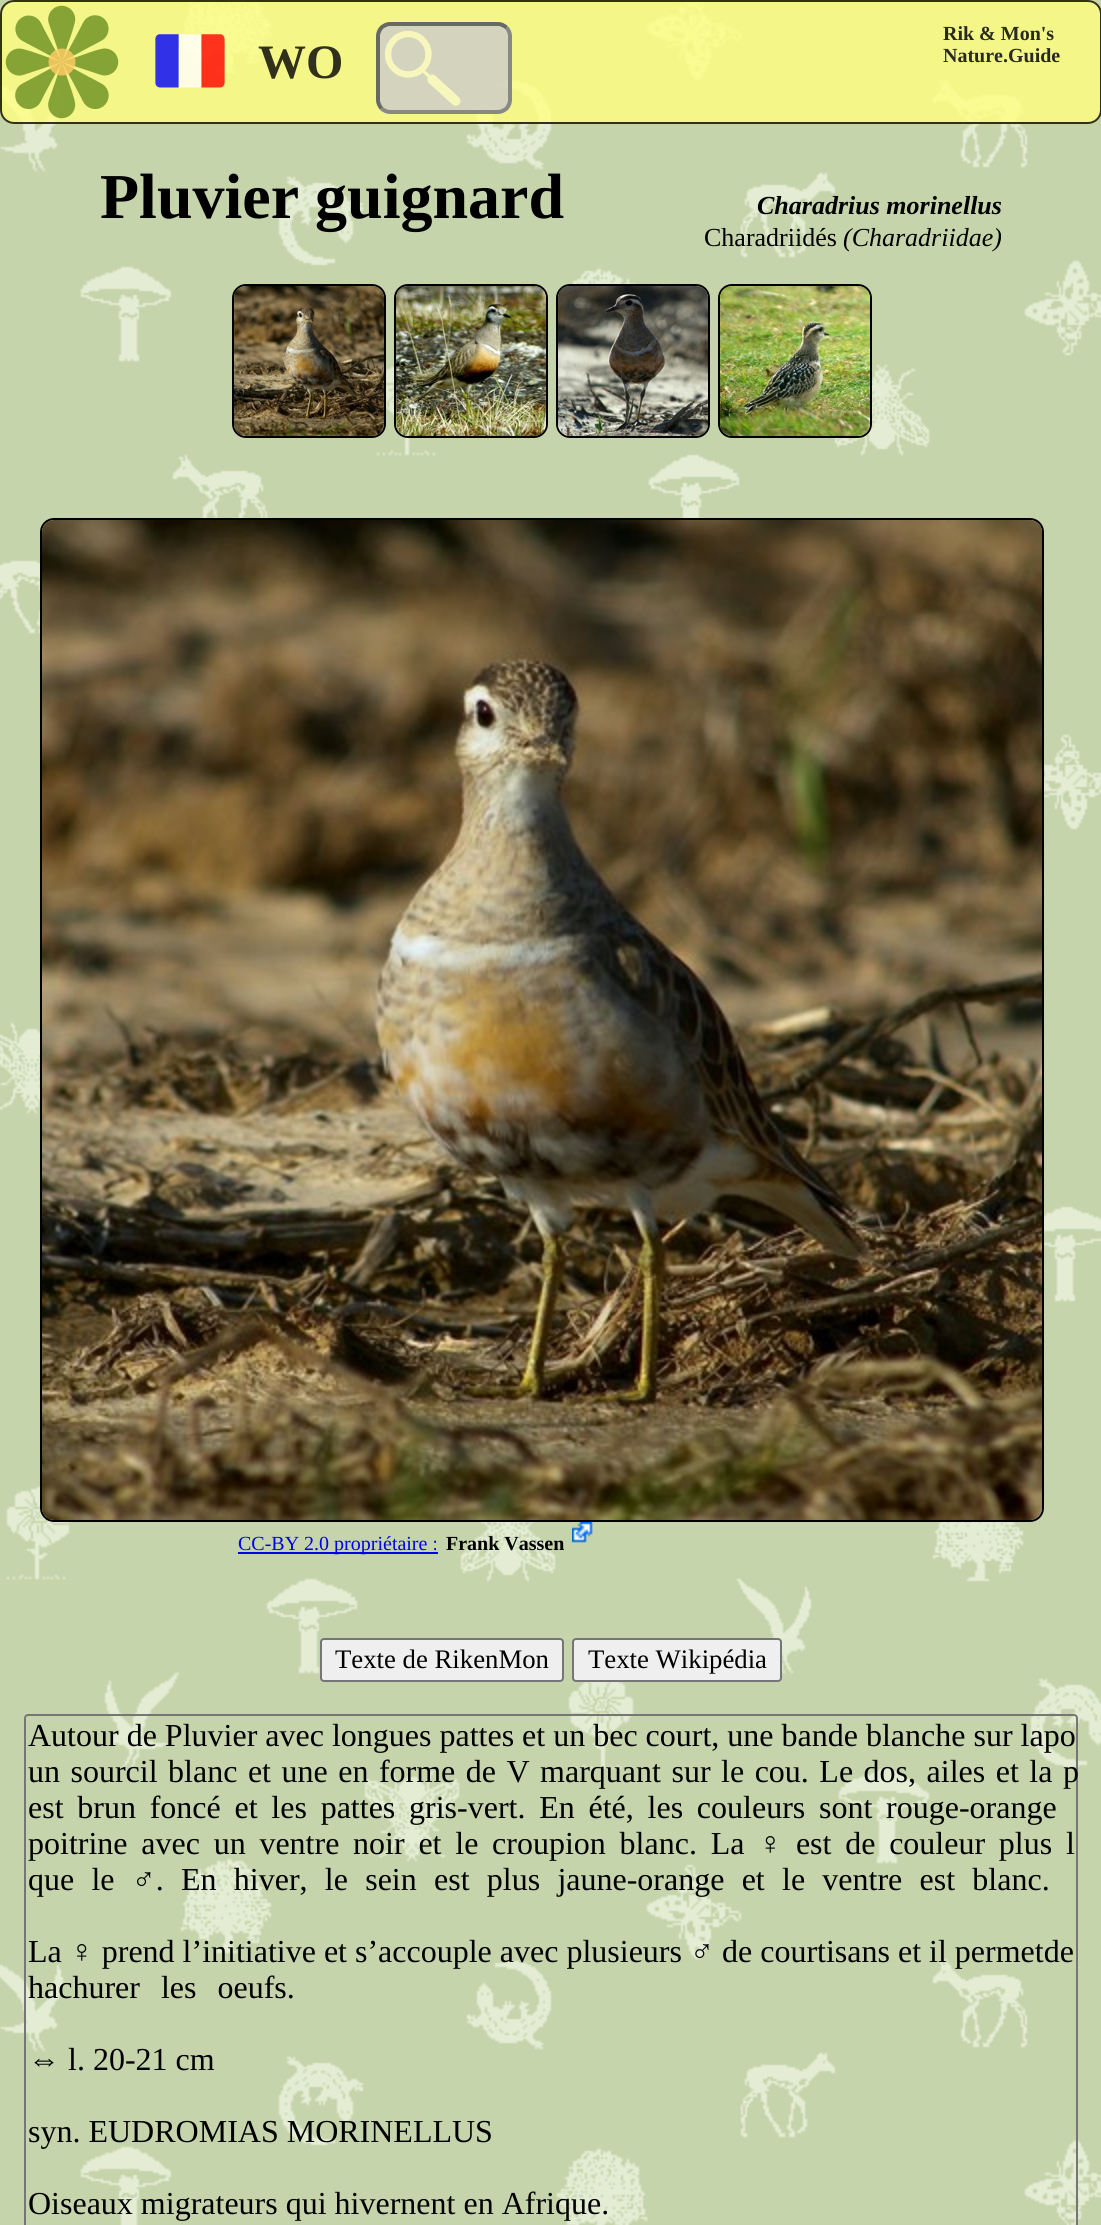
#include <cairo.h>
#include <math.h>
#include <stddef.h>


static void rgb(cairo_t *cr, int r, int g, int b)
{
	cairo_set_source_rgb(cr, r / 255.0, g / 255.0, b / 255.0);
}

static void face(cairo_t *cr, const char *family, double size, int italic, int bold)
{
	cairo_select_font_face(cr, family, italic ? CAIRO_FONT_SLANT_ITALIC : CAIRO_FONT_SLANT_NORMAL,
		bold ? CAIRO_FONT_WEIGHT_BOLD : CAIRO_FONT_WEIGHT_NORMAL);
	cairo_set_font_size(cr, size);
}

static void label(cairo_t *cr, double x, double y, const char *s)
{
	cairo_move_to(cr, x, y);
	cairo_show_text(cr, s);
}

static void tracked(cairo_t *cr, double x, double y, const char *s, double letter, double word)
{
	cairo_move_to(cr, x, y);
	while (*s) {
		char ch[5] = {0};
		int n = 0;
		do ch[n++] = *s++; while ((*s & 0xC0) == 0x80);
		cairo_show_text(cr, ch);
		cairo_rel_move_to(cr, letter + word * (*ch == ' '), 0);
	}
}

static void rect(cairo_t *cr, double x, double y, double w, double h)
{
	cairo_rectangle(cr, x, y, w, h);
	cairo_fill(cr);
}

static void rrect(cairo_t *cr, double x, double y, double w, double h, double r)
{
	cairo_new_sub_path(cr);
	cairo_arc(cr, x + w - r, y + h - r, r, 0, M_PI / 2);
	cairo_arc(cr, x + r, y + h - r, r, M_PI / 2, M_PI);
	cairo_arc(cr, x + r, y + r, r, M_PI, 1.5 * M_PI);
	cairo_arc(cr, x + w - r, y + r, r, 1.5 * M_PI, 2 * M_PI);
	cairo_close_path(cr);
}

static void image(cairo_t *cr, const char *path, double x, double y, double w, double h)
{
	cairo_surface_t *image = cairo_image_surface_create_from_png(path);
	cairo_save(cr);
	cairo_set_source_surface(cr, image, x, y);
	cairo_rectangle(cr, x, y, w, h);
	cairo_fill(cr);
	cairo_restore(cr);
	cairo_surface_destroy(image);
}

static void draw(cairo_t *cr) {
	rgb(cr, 255, 255, 255);
	cairo_paint(cr);
	image(cr, "image0.png", 0, 0, 1101, 2225);
	cairo_set_source_rgba(cr, 1, 1, 0.502, 0.8);
	rrect(cr, 0, 0, 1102, 124, 14);
	cairo_fill(cr);
	rrect(cr, 1, 1, 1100, 122, 13);
	cairo_set_source_rgba(cr, 0, 0, 0, 0.8);
	cairo_stroke(cr);
	image(cr, "image1.png", 5, 5, 114, 114);
	image(cr, "image2.png", 155, 34, 70, 54);
	face(cr, "Liberation Serif", 48, 0, 1);
	rgb(cr, 49, 49, 27);
	label(cr, 258, 78, "WO");
	cairo_set_source_rgba(cr, 0.8, 0.8, 0.8, 0.8);
	rrect(cr, 376, 22, 136, 92, 14);
	cairo_fill(cr);
	image(cr, "image3.png", 384, 30, 77, 76);
	cairo_new_path(cr);
	cairo_move_to(cr, 506.5, 27.5);
	cairo_curve_to(cr, 508.5, 30, 510, 33, 510, 36);
	cairo_line_to(cr, 510, 100);
	cairo_curve_to(cr, 510, 103, 508.5, 106, 506.5, 108.5);
	cairo_curve_to(cr, 504, 110.5, 501, 112, 498, 112);
	cairo_line_to(cr, 390, 112);
	cairo_curve_to(cr, 387, 112, 384, 110.5, 381.5, 108.5);
	cairo_set_source_rgba(cr, 0.463, 0.463, 0.463, 0.8);
	cairo_set_line_width(cr, 4);
	cairo_stroke(cr);
	cairo_new_path(cr);
	cairo_move_to(cr, 381.5, 108.5);
	cairo_curve_to(cr, 379.5, 106, 378, 103, 378, 100);
	cairo_line_to(cr, 378, 36);
	cairo_curve_to(cr, 378, 33, 379.5, 30, 381.5, 27.5);
	cairo_curve_to(cr, 384, 25.5, 387, 24, 390, 24);
	cairo_line_to(cr, 498, 24);
	cairo_curve_to(cr, 501, 24, 504, 25.5, 506.5, 27.5);
	rgb(cr, 103, 106, 97);
	cairo_stroke(cr);
	face(cr, "Liberation Serif", 20, 0, 1);
	rgb(cr, 40, 42, 34);
	label(cr, 943, 40, "Rik & Mon's");
	label(cr, 943, 62, "Nature.Guide");
	face(cr, "Liberation Serif", 64, 0, 1);
	rgb(cr, 0, 0, 0);
	label(cr, 100, 218, "Pluvier guignard");
	face(cr, "Liberation Serif", 26, 1, 1);
	label(cr, 757, 214, "Charadrius morinellus");
	face(cr, "Liberation Serif", 26, 0, 0);
	label(cr, 704, 246, "Charadriidés");
	face(cr, "Liberation Serif", 26, 1, 0);
	label(cr, 843, 246, "(Charadriidae)");
	rrect(cr, 233, 285, 152, 152, 13);
	cairo_set_line_width(cr, 2);
	cairo_stroke(cr);
	image(cr, "image4.png", 234, 286, 150, 150);
	rrect(cr, 395, 285, 152, 152, 13);
	cairo_stroke(cr);
	image(cr, "image5.png", 396, 286, 150, 150);
	rrect(cr, 557, 285, 152, 152, 13);
	cairo_stroke(cr);
	image(cr, "image6.png", 558, 286, 150, 150);
	rrect(cr, 719, 285, 152, 152, 13);
	cairo_stroke(cr);
	image(cr, "image7.png", 720, 286, 150, 150);
	rrect(cr, 41, 519, 1002, 1002, 13);
	cairo_stroke(cr);
	image(cr, "image8.png", 42, 520, 1000, 1000);
	image(cr, "image9.png", 572, 1522, 21, 21);
	rgb(cr, 0, 0, 238);
	rect(cr, 238, 1552, 200, 2);
	face(cr, "Liberation Serif", 20, 0, 0);
	label(cr, 238, 1550, "CC-BY 2.0 propriétaire :");
	face(cr, "Liberation Serif", 20, 0, 1);
	rgb(cr, 0, 0, 0);
	label(cr, 446, 1550, "Frank Vassen");
	rgb(cr, 239, 239, 239);
	rrect(cr, 321, 1639, 242, 42, 3);
	cairo_fill_preserve(cr);
	rgb(cr, 118, 118, 118);
	cairo_stroke(cr);
	face(cr, "Liberation Serif", 26.75, 0, 0);
	rgb(cr, 0, 0, 0);
	label(cr, 335, 1668, "Texte de RikenMon");
	rgb(cr, 239, 239, 239);
	rrect(cr, 573, 1639, 208, 42, 3);
	cairo_fill_preserve(cr);
	rgb(cr, 118, 118, 118);
	cairo_stroke(cr);
	rgb(cr, 0, 0, 0);
	label(cr, 588, 1668, "Texte Wikipédia");
	rrect(cr, 25, 1715, 1052, 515, 3);
	rgb(cr, 118, 118, 118);
	cairo_stroke(cr);
	face(cr, "Liberation Serif", 32, 0, 0);
	rgb(cr, 0, 0, 0);
	label(cr, 28, 1746, "Autour de Pluvier avec longues pattes et un bec court, une bande blanche sur lapo");
	tracked(cr, 28, 1782, "un sourcil blanc et une en forme de V marquant sur le cou. Le dos, ailes et la", 0, 2.5);
	label(cr, 1063, 1782, "p");
	tracked(cr, 28, 1818, "est brun foncé et les pattes gris-vert. En été, les couleurs sont rouge-orange", 0, 5.75);
	tracked(cr, 28, 1854, "poitrine avec un ventre noir et le croupion blanc. La ♀ est de couleur plus", 0, 5.75);
	label(cr, 1066, 1854, "l");
	tracked(cr, 28, 1890, "que le ♂. En hiver, le sein est plus jaune-orange et le ventre est blanc.", 0, 9.25);
	label(cr, 28, 1962, "La ♀ prend l’initiative et s’accouple avec plusieurs ♂ de courtisans et il permetde");
	tracked(cr, 28, 1998, "hachurer les oeufs.", 0, 13);
	label(cr, 28, 2070, "⇔ l. 20-21 cm");
	label(cr, 28, 2142, "syn. EUDROMIAS MORINELLUS");
	label(cr, 28, 2214, "Oiseaux migrateurs qui hivernent en Afrique.");
}

int main(void) {
	cairo_surface_t *surface = cairo_image_surface_create(CAIRO_FORMAT_RGB24, 1101, 2225);
	cairo_t *cr = cairo_create(surface);
	cairo_font_options_t *options = cairo_font_options_create();
	cairo_font_options_set_hint_metrics(options, CAIRO_HINT_METRICS_OFF);
	cairo_font_options_set_hint_style(options, CAIRO_HINT_STYLE_NONE);
	cairo_set_font_options(cr, options);
	cairo_set_miter_limit(cr, 4);
	draw(cr);
	cairo_surface_write_to_png(surface, "render.png");
	cairo_font_options_destroy(options);
	cairo_destroy(cr);
	cairo_surface_destroy(surface);
	return 0;
}
